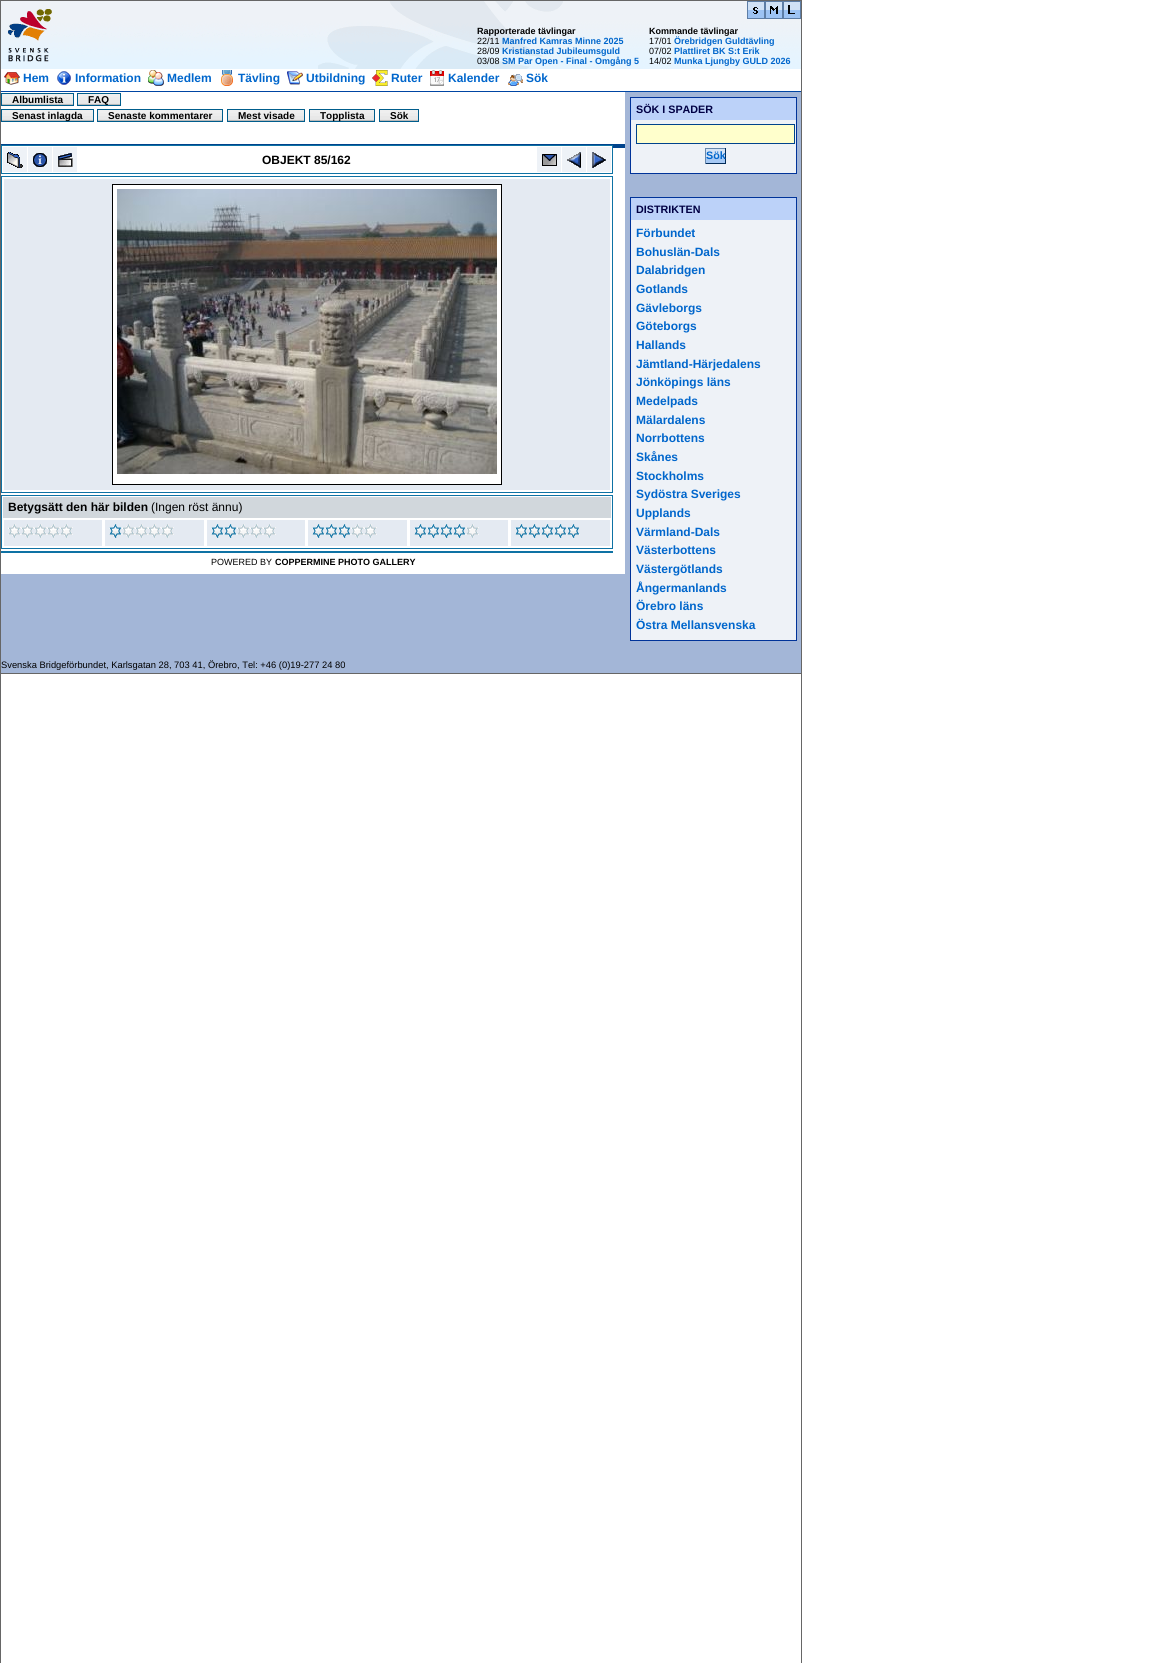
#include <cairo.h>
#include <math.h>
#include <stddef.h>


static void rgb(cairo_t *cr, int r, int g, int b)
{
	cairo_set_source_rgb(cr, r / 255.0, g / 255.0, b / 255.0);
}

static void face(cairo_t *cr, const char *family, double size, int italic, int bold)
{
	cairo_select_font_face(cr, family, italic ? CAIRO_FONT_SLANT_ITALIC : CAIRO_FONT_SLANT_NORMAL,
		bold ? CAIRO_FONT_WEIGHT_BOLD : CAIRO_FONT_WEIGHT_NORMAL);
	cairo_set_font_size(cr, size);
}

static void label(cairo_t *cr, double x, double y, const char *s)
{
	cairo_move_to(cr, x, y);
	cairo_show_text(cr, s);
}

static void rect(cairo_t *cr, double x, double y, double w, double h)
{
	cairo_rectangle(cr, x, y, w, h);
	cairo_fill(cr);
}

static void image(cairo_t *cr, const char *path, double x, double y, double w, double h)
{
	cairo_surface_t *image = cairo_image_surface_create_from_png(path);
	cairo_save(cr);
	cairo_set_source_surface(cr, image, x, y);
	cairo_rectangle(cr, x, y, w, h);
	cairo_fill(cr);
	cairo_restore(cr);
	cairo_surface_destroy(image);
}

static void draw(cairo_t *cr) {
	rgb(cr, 255, 255, 255);
	cairo_paint(cr);
	image(cr, "image0.png", 1, 1, 800, 68);
	rgb(cr, 102, 102, 102);
	rect(cr, 0, 0, 802, 1);
	rect(cr, 801, 0, 1, 1663);
	rect(cr, 0, 0, 1, 1663);
	image(cr, "image1.png", 7, 1, 556, 68);
	image(cr, "image2.png", 747, 1, 18, 18);
	image(cr, "image3.png", 765, 1, 18, 18);
	image(cr, "image4.png", 783, 1, 18, 18);
	face(cr, "Liberation Sans", 9, 0, 1);
	rgb(cr, 0, 0, 0);
	label(cr, 477, 34, "Rapporterade tävlingar");
	face(cr, "Liberation Sans", 9, 0, 0);
	label(cr, 477, 44, "22/11");
	face(cr, "Liberation Sans", 9, 0, 1);
	rgb(cr, 0, 102, 204);
	label(cr, 502, 44, "Manfred Kamras Minne 2025");
	face(cr, "Liberation Sans", 9, 0, 0);
	rgb(cr, 0, 0, 0);
	label(cr, 477, 54, "28/09");
	face(cr, "Liberation Sans", 9, 0, 1);
	rgb(cr, 0, 102, 204);
	label(cr, 502, 54, "Kristianstad Jubileumsguld");
	face(cr, "Liberation Sans", 9, 0, 0);
	rgb(cr, 0, 0, 0);
	label(cr, 477, 64, "03/08");
	face(cr, "Liberation Sans", 9, 0, 1);
	rgb(cr, 0, 102, 204);
	label(cr, 502, 64, "SM Par Open - Final - Omgång 5");
	rgb(cr, 0, 0, 0);
	label(cr, 649, 34, "Kommande tävlingar");
	face(cr, "Liberation Sans", 9, 0, 0);
	label(cr, 649, 44, "17/01");
	face(cr, "Liberation Sans", 9, 0, 1);
	rgb(cr, 0, 102, 204);
	label(cr, 674, 44, "Örebridgen Guldtävling");
	face(cr, "Liberation Sans", 9, 0, 0);
	rgb(cr, 0, 0, 0);
	label(cr, 649, 54, "07/02");
	face(cr, "Liberation Sans", 9, 0, 1);
	rgb(cr, 0, 102, 204);
	label(cr, 674, 54, "Plattliret BK S:t Erik");
	face(cr, "Liberation Sans", 9, 0, 0);
	rgb(cr, 0, 0, 0);
	label(cr, 649, 64, "14/02");
	face(cr, "Liberation Sans", 9, 0, 1);
	rgb(cr, 0, 102, 204);
	label(cr, 674, 64, "Munka Ljungby GULD 2026");
	rgb(cr, 0, 69, 163);
	rect(cr, 1, 91, 800, 1);
	image(cr, "image5.png", 4, 72, 16, 13);
	face(cr, "Liberation Sans", 12, 0, 1);
	rgb(cr, 0, 102, 204);
	label(cr, 23, 82, "Hem");
	image(cr, "image6.png", 57, 71, 14, 14);
	label(cr, 75, 82, "Information");
	image(cr, "image7.png", 148, 70, 16, 16);
	label(cr, 167, 82, "Medlem");
	image(cr, "image8.png", 221, 70, 12, 16);
	label(cr, 238, 82, "Tävling");
	image(cr, "image9.png", 287, 71, 16, 14);
	label(cr, 306, 82, "Utbildning");
	image(cr, "image10.png", 372, 70, 16, 16);
	label(cr, 391, 82, "Ruter");
	image(cr, "image11.png", 430, 70, 14, 16);
	label(cr, 448, 82, "Kalender");
	image(cr, "image12.png", 508, 74, 15, 12);
	label(cr, 526, 82, "Sök");
	rgb(cr, 163, 182, 215);
	rect(cr, 1, 92, 800, 581);
	rgb(cr, 255, 255, 255);
	rect(cr, 1, 92, 624, 482);
	image(cr, "image13.png", 2, 94, 71, 11);
	image(cr, "image14.png", 78, 94, 42, 11);
	cairo_rectangle(cr, 1.5, 93.5, 72, 12);
	rgb(cr, 0, 93, 140);
	cairo_set_line_width(cr, 1);
	cairo_stroke(cr);
	face(cr, "Liberation Sans", 10, 0, 1);
	rgb(cr, 0, 0, 0);
	label(cr, 12, 103, "Albumlista");
	cairo_rectangle(cr, 77.5, 93.5, 43, 12);
	rgb(cr, 0, 93, 140);
	cairo_stroke(cr);
	rgb(cr, 0, 0, 0);
	label(cr, 88, 103, "FAQ");
	image(cr, "image15.png", 2, 110, 91, 11);
	image(cr, "image16.png", 98, 110, 124, 11);
	image(cr, "image17.png", 228, 110, 76, 11);
	image(cr, "image18.png", 310, 110, 64, 11);
	image(cr, "image19.png", 380, 110, 38, 11);
	cairo_rectangle(cr, 1.5, 109.5, 92, 12);
	rgb(cr, 0, 93, 140);
	cairo_stroke(cr);
	rgb(cr, 0, 0, 0);
	label(cr, 12, 119, "Senast inlagda");
	cairo_rectangle(cr, 97.5, 109.5, 125, 12);
	rgb(cr, 0, 93, 140);
	cairo_stroke(cr);
	rgb(cr, 0, 0, 0);
	label(cr, 108, 119, "Senaste kommentarer");
	cairo_rectangle(cr, 227.5, 109.5, 77, 12);
	rgb(cr, 0, 93, 140);
	cairo_stroke(cr);
	rgb(cr, 0, 0, 0);
	label(cr, 238, 119, "Mest visade");
	cairo_rectangle(cr, 309.5, 109.5, 65, 12);
	rgb(cr, 0, 93, 140);
	cairo_stroke(cr);
	rgb(cr, 0, 0, 0);
	label(cr, 320, 119, "Topplista");
	cairo_rectangle(cr, 379.5, 109.5, 39, 12);
	rgb(cr, 0, 93, 140);
	cairo_stroke(cr);
	rgb(cr, 0, 0, 0);
	label(cr, 390, 119, "Sök");
	rgb(cr, 0, 67, 140);
	rect(cr, 1, 144, 624, 4);
	rgb(cr, 255, 255, 255);
	rect(cr, 2, 146, 610, 2);
	cairo_rectangle(cr, 1.5, 145.5, 611, 28);
	rgb(cr, 14, 114, 164);
	cairo_stroke(cr);
	rgb(cr, 238, 242, 247);
	rect(cr, 3, 147, 24, 25);
	image(cr, "image20.png", 7, 152, 16, 16);
	rect(cr, 28, 147, 24, 25);
	image(cr, "image21.png", 33, 153, 14, 14);
	rect(cr, 53, 147, 24, 25);
	image(cr, "image22.png", 58, 153, 15, 14);
	face(cr, "Liberation Sans", 12, 0, 1);
	rgb(cr, 0, 0, 0);
	label(cr, 262, 164, "OBJEKT 85/162");
	rgb(cr, 238, 242, 247);
	rect(cr, 537, 147, 24, 25);
	image(cr, "image23.png", 542, 154, 15, 12);
	rect(cr, 562, 147, 24, 25);
	image(cr, "image24.png", 567, 152, 14, 16);
	rect(cr, 587, 147, 24, 25);
	image(cr, "image25.png", 592, 152, 14, 16);
	cairo_rectangle(cr, 1.5, 176.5, 611, 316);
	rgb(cr, 14, 114, 164);
	cairo_stroke(cr);
	rgb(cr, 228, 234, 242);
	rect(cr, 4, 179, 606, 311);
	rgb(cr, 255, 255, 255);
	cairo_rectangle(cr, 112.5, 184.5, 389, 300);
	cairo_fill_preserve(cr);
	rgb(cr, 0, 0, 0);
	cairo_stroke(cr);
	image(cr, "image26.png", 117, 189, 380, 285);
	cairo_rectangle(cr, 1.5, 495.5, 611, 53);
	rgb(cr, 14, 114, 164);
	cairo_stroke(cr);
	rgb(cr, 209, 215, 220);
	rect(cr, 3, 497, 608, 21);
	rgb(cr, 0, 0, 0);
	label(cr, 8, 511, "Betygsätt den här bilden");
	face(cr, "Liberation Sans", 12, 0, 0);
	label(cr, 151, 511, "(Ingen röst ännu)");
	rgb(cr, 228, 234, 242);
	rect(cr, 4, 520, 98, 26);
	image(cr, "image27.png", 8, 524, 65, 14);
	rect(cr, 105, 520, 99, 26);
	image(cr, "image28.png", 109, 524, 65, 14);
	rect(cr, 207, 520, 98, 26);
	image(cr, "image29.png", 211, 524, 65, 14);
	rect(cr, 308, 520, 99, 26);
	image(cr, "image30.png", 312, 524, 65, 14);
	rect(cr, 410, 520, 98, 26);
	image(cr, "image31.png", 414, 524, 65, 14);
	rect(cr, 511, 520, 99, 26);
	image(cr, "image32.png", 515, 524, 65, 14);
	rgb(cr, 14, 114, 164);
	rect(cr, 1, 551, 612, 2);
	face(cr, "Liberation Sans", 9, 0, 0);
	rgb(cr, 0, 0, 0);
	label(cr, 211, 565, "POWERED BY");
	face(cr, "Liberation Sans", 9, 0, 1);
	label(cr, 275, 565, "COPPERMINE PHOTO GALLERY");
	rgb(cr, 238, 242, 247);
	rect(cr, 631, 120, 165, 53);
	rgb(cr, 188, 210, 249);
	rect(cr, 631, 98, 165, 22);
	cairo_rectangle(cr, 630.5, 97.5, 166, 76);
	rgb(cr, 0, 51, 153);
	cairo_stroke(cr);
	face(cr, "Liberation Sans", 10.75, 0, 1);
	rgb(cr, 0, 0, 68);
	label(cr, 636, 113, "SÖK I SPADER");
	rgb(cr, 255, 255, 204);
	cairo_rectangle(cr, 636.5, 124.5, 158, 19);
	cairo_fill_preserve(cr);
	rgb(cr, 0, 67, 140);
	cairo_stroke(cr);
	image(cr, "image33.png", 706, 149, 19, 14);
	rgb(cr, 103, 136, 173);
	rect(cr, 705, 148, 21, 1);
	rgb(cr, 1, 43, 88);
	rect(cr, 725, 148, 1, 16);
	rect(cr, 705, 163, 21, 1);
	rgb(cr, 103, 136, 173);
	rect(cr, 705, 148, 1, 16);
	rgb(cr, 0, 102, 204);
	label(cr, 706, 159, "Sök");
	rgb(cr, 238, 242, 247);
	rect(cr, 631, 220, 165, 420);
	rgb(cr, 188, 210, 249);
	rect(cr, 631, 198, 165, 22);
	cairo_rectangle(cr, 630.5, 197.5, 166, 443);
	rgb(cr, 0, 51, 153);
	cairo_stroke(cr);
	rgb(cr, 0, 0, 68);
	label(cr, 636, 213, "DISTRIKTEN");
	face(cr, "Liberation Sans", 12, 0, 1);
	rgb(cr, 0, 102, 204);
	label(cr, 636, 237, "Förbundet");
	label(cr, 636, 256, "Bohuslän-Dals");
	label(cr, 636, 274, "Dalabridgen");
	label(cr, 636, 293, "Gotlands");
	label(cr, 636, 312, "Gävleborgs");
	label(cr, 636, 330, "Göteborgs");
	label(cr, 636, 349, "Hallands");
	label(cr, 636, 368, "Jämtland-Härjedalens");
	label(cr, 636, 386, "Jönköpings läns");
	label(cr, 636, 405, "Medelpads");
	label(cr, 636, 424, "Mälardalens");
	label(cr, 636, 442, "Norrbottens");
	label(cr, 636, 461, "Skånes");
	label(cr, 636, 480, "Stockholms");
	label(cr, 636, 498, "Sydöstra Sveriges");
	label(cr, 636, 517, "Upplands");
	label(cr, 636, 536, "Värmland-Dals");
	label(cr, 636, 554, "Västerbottens");
	label(cr, 636, 573, "Västergötlands");
	label(cr, 636, 592, "Ångermanlands");
	label(cr, 636, 610, "Örebro läns");
	label(cr, 636, 629, "Östra Mellansvenska");
	rgb(cr, 102, 102, 102);
	rect(cr, 1, 673, 800, 1);
	face(cr, "Liberation Sans", 9.35, 0, 0);
	rgb(cr, 0, 0, 0);
	label(cr, 1, 668, "Svenska Bridgeförbundet, Karlsgatan 28, 703 41, Örebro, Tel: +46 (0)19-277 24 80");
}

int main(void) {
	cairo_surface_t *surface = cairo_image_surface_create(CAIRO_FORMAT_RGB24, 1170, 1663);
	cairo_t *cr = cairo_create(surface);
	cairo_font_options_t *options = cairo_font_options_create();
	cairo_font_options_set_hint_metrics(options, CAIRO_HINT_METRICS_OFF);
	cairo_font_options_set_hint_style(options, CAIRO_HINT_STYLE_NONE);
	cairo_set_font_options(cr, options);
	cairo_set_miter_limit(cr, 4);
	draw(cr);
	cairo_surface_write_to_png(surface, "render.png");
	cairo_font_options_destroy(options);
	cairo_destroy(cr);
	cairo_surface_destroy(surface);
	return 0;
}
